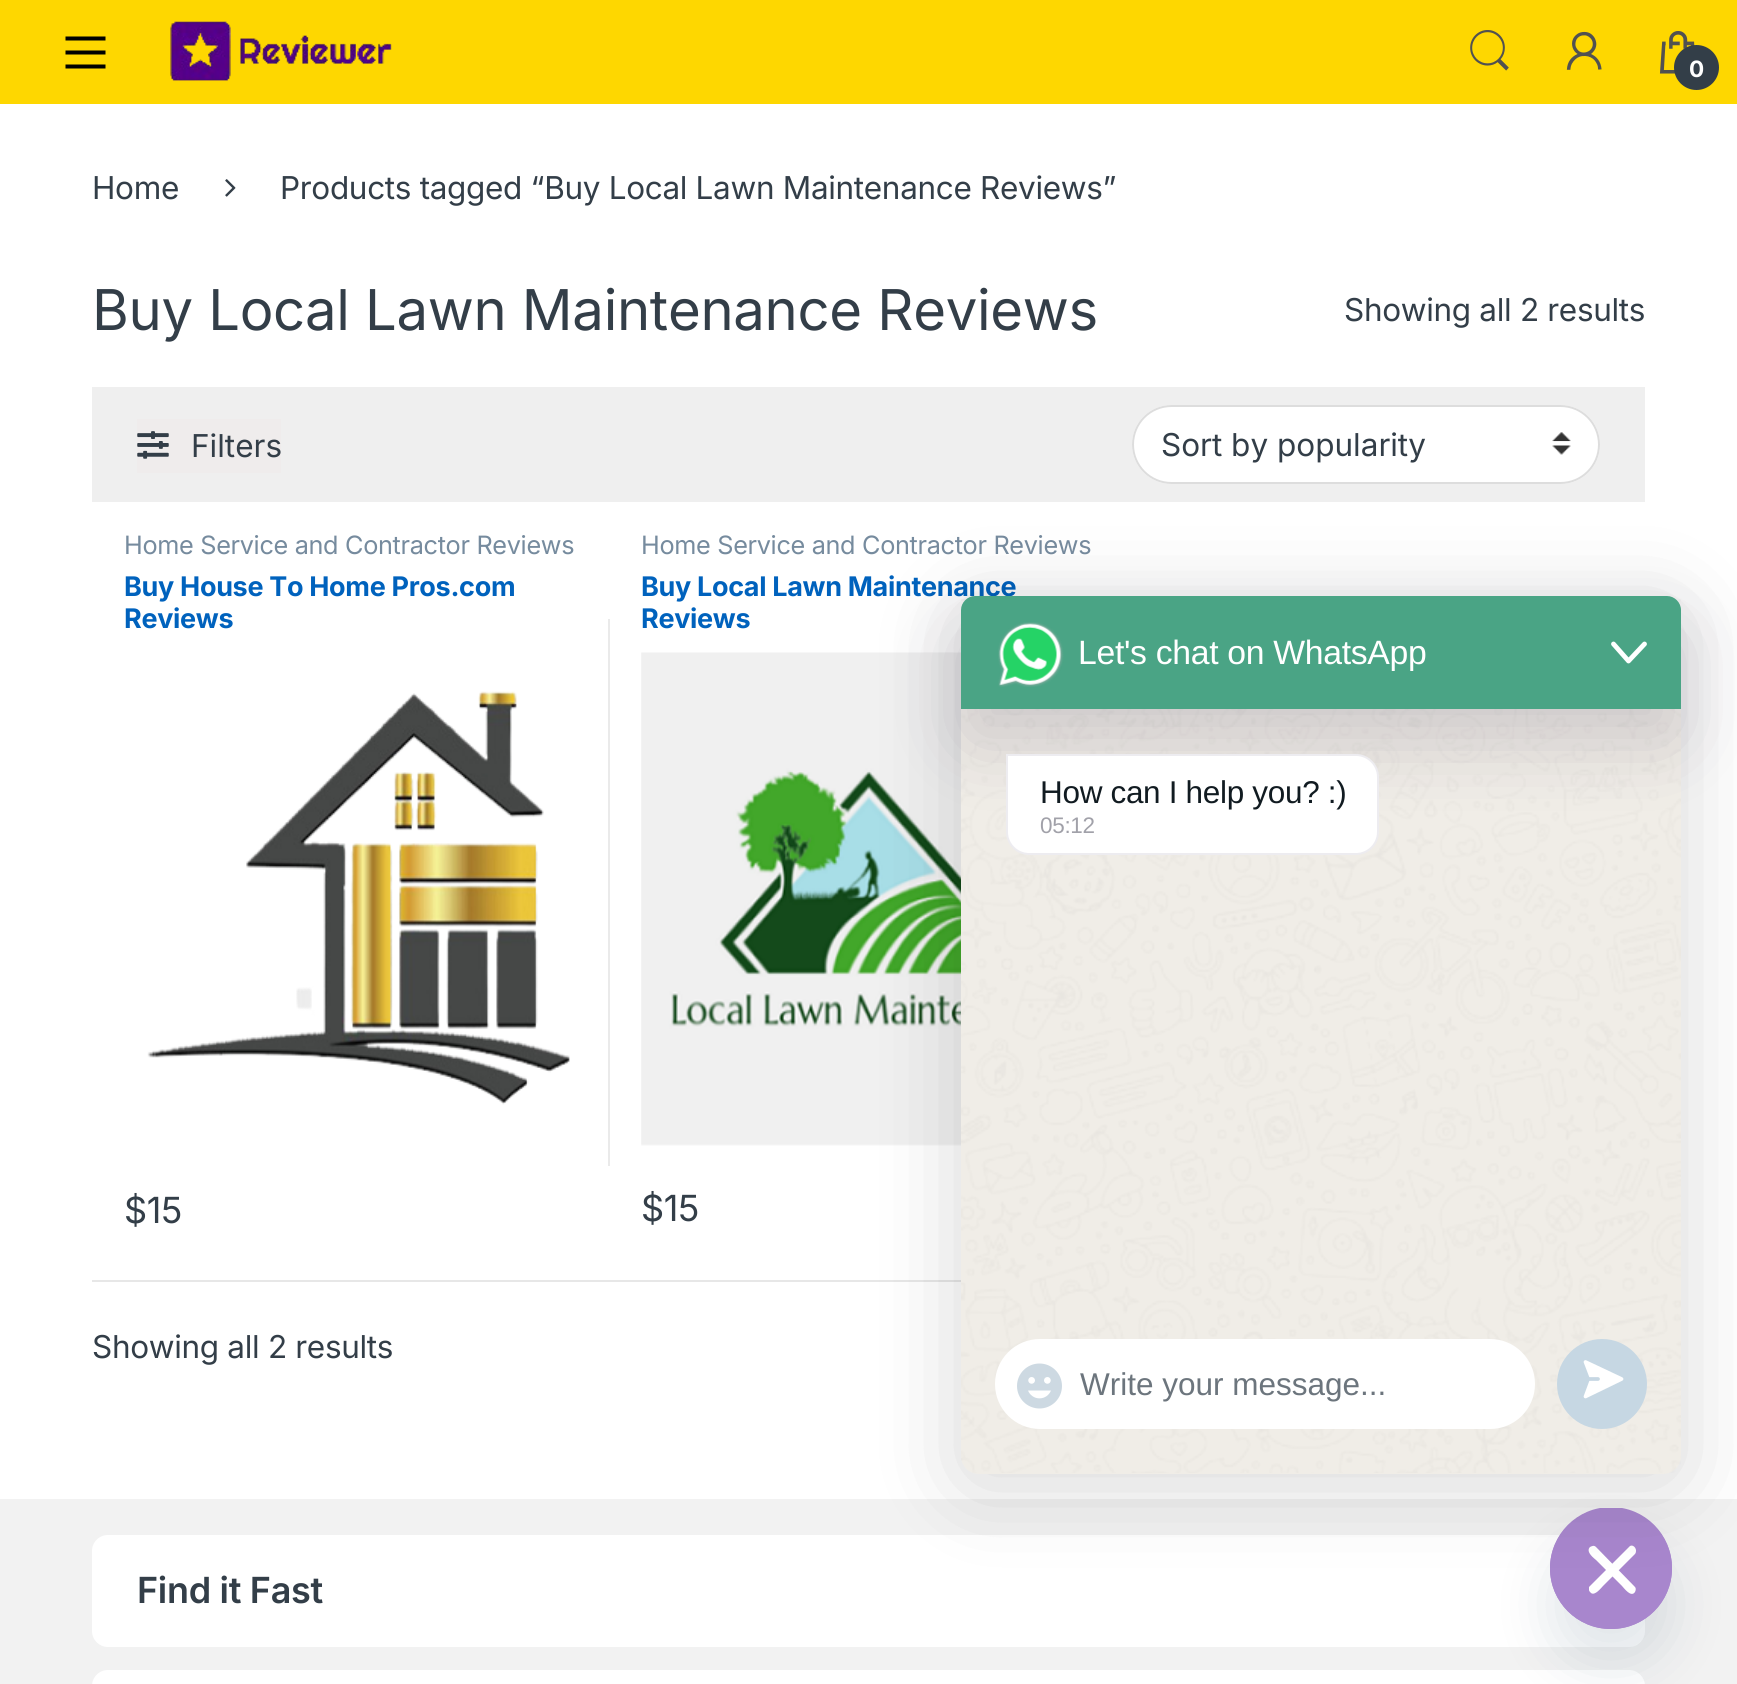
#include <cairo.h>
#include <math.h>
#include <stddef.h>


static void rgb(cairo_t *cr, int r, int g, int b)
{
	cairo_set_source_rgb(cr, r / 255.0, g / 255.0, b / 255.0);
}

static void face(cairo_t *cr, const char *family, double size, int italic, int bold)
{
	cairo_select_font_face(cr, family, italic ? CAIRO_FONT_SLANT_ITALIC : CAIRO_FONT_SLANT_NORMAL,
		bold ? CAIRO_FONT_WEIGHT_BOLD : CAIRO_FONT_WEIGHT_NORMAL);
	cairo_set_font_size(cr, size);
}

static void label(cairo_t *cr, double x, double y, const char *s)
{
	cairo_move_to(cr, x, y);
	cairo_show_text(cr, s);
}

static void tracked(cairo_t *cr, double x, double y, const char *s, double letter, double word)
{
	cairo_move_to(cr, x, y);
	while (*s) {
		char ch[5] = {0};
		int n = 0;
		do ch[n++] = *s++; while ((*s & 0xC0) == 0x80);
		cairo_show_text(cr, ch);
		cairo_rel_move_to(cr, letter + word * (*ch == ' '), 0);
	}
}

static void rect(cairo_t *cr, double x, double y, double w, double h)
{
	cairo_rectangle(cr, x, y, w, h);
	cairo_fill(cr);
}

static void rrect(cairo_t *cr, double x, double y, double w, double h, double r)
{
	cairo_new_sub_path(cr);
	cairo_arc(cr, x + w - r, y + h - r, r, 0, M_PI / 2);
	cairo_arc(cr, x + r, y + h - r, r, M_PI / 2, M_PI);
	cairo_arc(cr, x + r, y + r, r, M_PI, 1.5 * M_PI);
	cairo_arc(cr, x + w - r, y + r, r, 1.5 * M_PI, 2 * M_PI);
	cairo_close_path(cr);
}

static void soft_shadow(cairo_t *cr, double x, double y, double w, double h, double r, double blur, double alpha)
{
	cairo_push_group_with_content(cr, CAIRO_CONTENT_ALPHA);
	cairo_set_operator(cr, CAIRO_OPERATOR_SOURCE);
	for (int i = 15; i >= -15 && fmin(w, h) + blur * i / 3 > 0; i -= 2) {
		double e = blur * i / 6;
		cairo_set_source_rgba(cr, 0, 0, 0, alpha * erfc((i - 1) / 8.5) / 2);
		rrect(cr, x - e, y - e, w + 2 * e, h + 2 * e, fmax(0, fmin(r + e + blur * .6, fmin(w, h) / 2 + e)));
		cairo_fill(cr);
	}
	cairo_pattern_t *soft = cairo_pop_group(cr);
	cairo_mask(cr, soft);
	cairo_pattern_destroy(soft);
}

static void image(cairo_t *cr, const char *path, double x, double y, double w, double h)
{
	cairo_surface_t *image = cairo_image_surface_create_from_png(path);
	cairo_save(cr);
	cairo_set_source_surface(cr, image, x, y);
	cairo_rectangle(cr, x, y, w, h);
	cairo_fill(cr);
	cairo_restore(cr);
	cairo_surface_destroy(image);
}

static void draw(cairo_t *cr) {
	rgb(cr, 255, 255, 255);
	cairo_paint(cr);
	rgb(cr, 254, 215, 0);
	rect(cr, 0, 0, 1737, 104);
	rgb(cr, 0, 0, 0);
	cairo_new_path(cr);
	cairo_move_to(cr, 65.5, 68.5);
	cairo_line_to(cr, 65.5, 64.5);
	cairo_line_to(cr, 105.5, 64.5);
	cairo_line_to(cr, 105.5, 68.5);
	cairo_close_path(cr);
	cairo_move_to(cr, 65.5, 50.5);
	cairo_line_to(cr, 105.5, 50.5);
	cairo_line_to(cr, 105.5, 54.5);
	cairo_line_to(cr, 65.5, 54.5);
	cairo_close_path(cr);
	cairo_move_to(cr, 65.5, 36.5);
	cairo_line_to(cr, 105.5, 36.5);
	cairo_line_to(cr, 105.5, 40.5);
	cairo_line_to(cr, 65.5, 40.5);
	cairo_close_path(cr);
	cairo_fill(cr);
	image(cr, "image0.png", 170, 21, 222, 60);
	image(cr, "image1.png", 1470, 30, 39, 41);
	image(cr, "image2.png", 1566, 31, 36, 39);
	image(cr, "image3.png", 1659, 31, 36, 43);
	rgb(cr, 51, 62, 72);
	cairo_arc(cr, 1696.5, 67.5, 22.5, 0, 2 * M_PI);
	cairo_fill(cr);
	face(cr, "Inter", 22.5, 0, 1);
	rgb(cr, 255, 255, 255);
	tracked(cr, 1689, 77, "0", -0.32, 0);
	face(cr, "Inter", 31.5, 0, 0);
	rgb(cr, 51, 62, 72);
	tracked(cr, 92, 199, "Home", -0.32, 0);
	image(cr, "image4.png", 225, 179, 11, 18);
	tracked(cr, 280, 199, "Products tagged “Buy Local Lawn Maintenance Reviews”", -0.32, 0);
	face(cr, "Inter", 56.25, 0, 0);
	tracked(cr, 92, 330, "Buy Local Lawn Maintenance Reviews", -0.32, 0);
	face(cr, "Inter", 31.5, 0, 0);
	tracked(cr, 1344, 321, "Showing all 2 results", -0.32, 0);
	rgb(cr, 239, 239, 239);
	rect(cr, 92, 387, 1553, 115);
	rgb(cr, 239, 236, 236);
	rect(cr, 137, 419, 144, 54);
	image(cr, "image5.png", 137, 431, 32, 28);
	rgb(cr, 51, 62, 72);
	label(cr, 191, 457, "Filters");
	rgb(cr, 255, 255, 255);
	rrect(cr, 1132, 405, 468, 79, 39.5);
	cairo_fill(cr);
	image(cr, "image6.png", 1552, 432, 19, 23);
	rrect(cr, 1133, 406, 466, 77, 38.5);
	rgb(cr, 221, 221, 221);
	cairo_stroke(cr);
	rgb(cr, 51, 62, 72);
	label(cr, 1161, 456, "Sort by popularity");
	face(cr, "Inter", 25.25, 0, 0);
	rgb(cr, 118, 139, 158);
	tracked(cr, 124, 554, "Home Service and Contractor Reviews", -0.32, 0);
	face(cr, "Inter", 27, 0, 1);
	rgb(cr, 0, 98, 189);
	tracked(cr, 124, 596, "Buy House To Home Pros.com", -0.32, 0);
	tracked(cr, 124, 628, "Reviews", -0.32, 0);
	image(cr, "image7.png", 147, 691, 423, 414);
	face(cr, "Inter", 36, 0, 0);
	rgb(cr, 51, 62, 72);
	tracked(cr, 124, 1223, "$15", -0.32, 0);
	rgb(cr, 234, 234, 234);
	rect(cr, 608, 619, 2, 547);
	face(cr, "Inter", 25.25, 0, 0);
	rgb(cr, 118, 139, 158);
	tracked(cr, 641, 554, "Home Service and Contractor Reviews", -0.32, 0);
	face(cr, "Inter", 27, 0, 1);
	rgb(cr, 0, 98, 189);
	tracked(cr, 641, 596, "Buy Local Lawn Maintenance", -0.32, 0);
	tracked(cr, 641, 628, "Reviews", -0.32, 0);
	image(cr, "image8.png", 641, 652, 320, 494);
	face(cr, "Inter", 36, 0, 0);
	rgb(cr, 51, 62, 72);
	tracked(cr, 641, 1221, "$15", -0.32, 0);
	rgb(cr, 231, 231, 231);
	rect(cr, 92, 1280, 869, 2);
	face(cr, "Inter", 31.5, 0, 0);
	rgb(cr, 51, 62, 72);
	tracked(cr, 92, 1358, "Showing all 2 results", -0.32, 0);
	rgb(cr, 242, 242, 242);
	rect(cr, 0, 1499, 1737, 185);
	rgb(cr, 255, 255, 255);
	rrect(cr, 92, 1535, 1553, 112, 16);
	cairo_fill(cr);
	face(cr, "Inter SemiBold", 36, 0, 0);
	rgb(cr, 51, 62, 72);
	tracked(cr, 137, 1603, "Find it Fast", -0.32, 0);
	rgb(cr, 255, 255, 255);
	rrect(cr, 92, 1670, 1553, 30, 16);
	cairo_fill(cr);
	rgb(cr, 73, 104, 126);
	soft_shadow(cr, 1550, 1544, 122, 121, 60.5, 27, 0.16);
	rgb(cr, 168, 134, 205);
	rrect(cr, 1550, 1508, 122, 121, 60.5);
	cairo_fill(cr);
	cairo_save(cr);
	cairo_rectangle(cr, 1550, 1508, 122, 121);
	cairo_clip(cr);
	cairo_arc(cr, 1611, 1568, 61, 0, 2 * M_PI);
	cairo_fill(cr);
	cairo_restore(cr);
	rgb(cr, 255, 255, 255);
	cairo_new_path(cr);
	cairo_move_to(cr, 1596, 1547);
	cairo_line_to(cr, 1635, 1587);
	cairo_curve_to(cr, 1636, 1588, 1636, 1590, 1635, 1592);
	cairo_curve_to(cr, 1631, 1598, 1624, 1588, 1622, 1586);
	cairo_line_to(cr, 1596, 1560);
	cairo_curve_to(cr, 1595, 1559, 1585, 1552, 1590, 1547);
	cairo_curve_to(cr, 1592, 1546, 1594, 1545, 1596, 1547);
	cairo_close_path(cr);
	cairo_fill(cr);
	cairo_new_path(cr);
	cairo_move_to(cr, 1635, 1554);
	cairo_line_to(cr, 1603, 1586);
	cairo_curve_to(cr, 1601, 1588, 1595, 1596, 1591, 1593);
	cairo_curve_to(cr, 1590, 1592, 1589, 1591, 1589, 1590);
	cairo_line_to(cr, 1589, 1587);
	cairo_line_to(cr, 1630, 1546);
	cairo_curve_to(cr, 1634, 1544, 1638, 1550, 1635, 1554);
	cairo_close_path(cr);
	cairo_fill(cr);
	rgb(cr, 0, 0, 0);
	soft_shadow(cr, 961, 608, 720, 877, 14, 45, 0.16);
	rgb(cr, 240, 237, 231);
	rrect(cr, 961, 596, 720, 878, 18);
	cairo_fill(cr);
	image(cr, "image9.png", 961, 599, 720, 874);
	rgb(cr, 26, 14, 53);
	soft_shadow(cr, 961, 632, 720, 113, 14, 36, 0.16);
	rgb(cr, 74, 164, 133);
	cairo_new_path(cr);
	cairo_move_to(cr, 975, 596);
	cairo_line_to(cr, 1667, 596);
	cairo_curve_to(cr, 1674.5, 596, 1681, 602.5, 1681, 610);
	cairo_line_to(cr, 1681, 709);
	cairo_line_to(cr, 961, 709);
	cairo_line_to(cr, 961, 610);
	cairo_curve_to(cr, 961, 602.5, 967.5, 596, 975, 596);
	cairo_close_path(cr);
	cairo_fill(cr);
	image(cr, "image10.png", 998, 622, 66, 65);
	face(cr, "Liberation Sans", 33.75, 0, 0);
	rgb(cr, 255, 255, 255);
	tracked(cr, 1078, 664, "Let's chat on WhatsApp", -0.32, 0);
	cairo_new_path(cr);
	cairo_move_to(cr, 1613.5, 644);
	cairo_line_to(cr, 1628.5, 661);
	cairo_line_to(cr, 1644.5, 644);
	cairo_set_line_width(cr, 4.8);
	cairo_set_line_cap(cr, CAIRO_LINE_CAP_ROUND);
	cairo_set_line_join(cr, CAIRO_LINE_JOIN_ROUND);
	cairo_stroke(cr);
	cairo_new_path(cr);
	cairo_move_to(cr, 1006, 754);
	cairo_line_to(cr, 1356, 754);
	cairo_curve_to(cr, 1368.5, 754, 1379, 764.5, 1379, 777);
	cairo_line_to(cr, 1379, 832);
	cairo_curve_to(cr, 1379, 844.5, 1368.5, 855, 1356, 855);
	cairo_line_to(cr, 1029, 855);
	cairo_curve_to(cr, 1016.5, 855, 1006, 844.5, 1006, 832);
	cairo_close_path(cr);
	cairo_fill(cr);
	cairo_new_path(cr);
	cairo_move_to(cr, 1007, 755);
	cairo_line_to(cr, 1356, 755);
	cairo_curve_to(cr, 1368, 755, 1378, 765, 1378, 777);
	cairo_line_to(cr, 1378, 832);
	cairo_curve_to(cr, 1378, 844, 1368, 854, 1356, 854);
	cairo_line_to(cr, 1029, 854);
	cairo_curve_to(cr, 1017, 854, 1007, 844, 1007, 832);
	cairo_close_path(cr);
	cairo_set_source_rgba(cr, 0.133, 0.067, 0.278, 0.08);
	cairo_set_line_width(cr, 2);
	cairo_set_line_cap(cr, CAIRO_LINE_CAP_BUTT);
	cairo_set_line_join(cr, CAIRO_LINE_JOIN_MITER);
	cairo_stroke(cr);
	face(cr, "Liberation Sans", 31.5, 0, 0);
	rgb(cr, 17, 27, 33);
	tracked(cr, 1040, 803, "How can I help you? :)", -0.32, 0);
	face(cr, "Liberation Sans", 22.5, 0, 0);
	rgb(cr, 161, 161, 169);
	tracked(cr, 1040, 833, "05:12", -0.32, 0);
	rgb(cr, 255, 255, 255);
	rrect(cr, 995, 1339, 540, 90, 45);
	cairo_fill(cr);
	image(cr, "image11.png", 1017, 1363, 45, 46);
	face(cr, "Liberation Sans", 31.5, 0, 0);
	rgb(cr, 108, 117, 125);
	label(cr, 1080, 1395, "Write your message...");
	rgb(cr, 198, 215, 227);
	cairo_new_path(cr);
	cairo_arc(cr, 1602, 1384, 45, 0, 2 * M_PI);
	cairo_fill(cr);
	rgb(cr, 255, 255, 255);
	cairo_new_path(cr);
	cairo_move_to(cr, 1621.5, 1379);
	cairo_line_to(cr, 1585.5, 1396.5);
	cairo_line_to(cr, 1592, 1379);
	cairo_line_to(cr, 1585.5, 1362);
	cairo_close_path(cr);
	cairo_fill_preserve(cr);
	cairo_set_line_width(cr, 3.7);
	cairo_set_line_cap(cr, CAIRO_LINE_CAP_ROUND);
	cairo_set_line_join(cr, CAIRO_LINE_JOIN_ROUND);
	cairo_stroke(cr);
	cairo_new_path(cr);
	cairo_move_to(cr, 1598, 1379);
	cairo_line_to(cr, 1586.5, 1379);
	rgb(cr, 198, 215, 227);
	cairo_stroke(cr);
}

int main(void) {
	cairo_surface_t *surface = cairo_image_surface_create(CAIRO_FORMAT_RGB24, 1737, 1684);
	cairo_t *cr = cairo_create(surface);
	cairo_font_options_t *options = cairo_font_options_create();
	cairo_font_options_set_hint_metrics(options, CAIRO_HINT_METRICS_OFF);
	cairo_font_options_set_hint_style(options, CAIRO_HINT_STYLE_NONE);
	cairo_set_font_options(cr, options);
	cairo_set_miter_limit(cr, 4);
	draw(cr);
	cairo_surface_write_to_png(surface, "render.png");
	cairo_font_options_destroy(options);
	cairo_destroy(cr);
	cairo_surface_destroy(surface);
	return 0;
}
